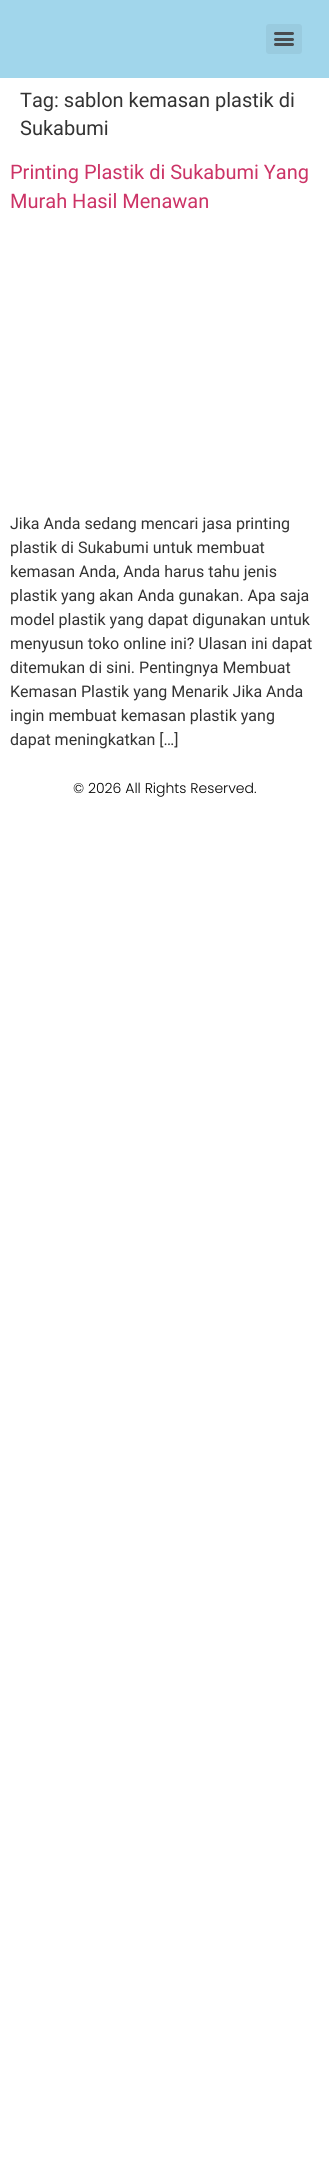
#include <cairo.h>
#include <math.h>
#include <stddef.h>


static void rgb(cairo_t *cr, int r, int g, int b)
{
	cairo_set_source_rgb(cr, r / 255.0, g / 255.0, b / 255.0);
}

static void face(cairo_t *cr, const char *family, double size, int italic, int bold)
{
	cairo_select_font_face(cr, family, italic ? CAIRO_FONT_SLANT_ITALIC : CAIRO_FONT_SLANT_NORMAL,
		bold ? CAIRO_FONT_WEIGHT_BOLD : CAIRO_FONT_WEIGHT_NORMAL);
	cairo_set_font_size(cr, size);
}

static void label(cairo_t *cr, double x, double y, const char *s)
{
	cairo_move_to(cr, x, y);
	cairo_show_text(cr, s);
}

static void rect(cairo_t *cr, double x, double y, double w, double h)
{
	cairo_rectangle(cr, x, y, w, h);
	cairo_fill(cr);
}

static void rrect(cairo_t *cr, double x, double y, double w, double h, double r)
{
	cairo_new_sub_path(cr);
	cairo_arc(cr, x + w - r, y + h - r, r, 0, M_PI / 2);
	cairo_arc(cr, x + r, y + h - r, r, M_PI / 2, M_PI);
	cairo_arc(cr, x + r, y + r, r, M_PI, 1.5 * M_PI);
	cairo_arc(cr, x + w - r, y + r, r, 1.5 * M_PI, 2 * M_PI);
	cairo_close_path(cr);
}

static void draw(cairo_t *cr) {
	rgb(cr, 255, 255, 255);
	cairo_paint(cr);
	rgb(cr, 161, 214, 235);
	rect(cr, 0, 0, 329, 78);
	rgb(cr, 153, 203, 223);
	rrect(cr, 266, 24, 36, 30, 3);
	cairo_fill(cr);
	rgb(cr, 73, 76, 79);
	rrect(cr, 274, 38, 20, 3, 1.5);
	cairo_fill(cr);
	rrect(cr, 274, 32, 20, 3, 1.5);
	cairo_fill(cr);
	rrect(cr, 274, 43, 20, 3, 1.5);
	cairo_fill(cr);
	face(cr, "Roboto", 20, 0, 0);
	rgb(cr, 51, 51, 51);
	label(cr, 20, 107, "Tag: sablon kemasan plastik di");
	label(cr, 20, 135, "Sukabumi");
	rgb(cr, 204, 51, 102);
	label(cr, 10, 179, "Printing Plastik di Sukabumi Yang");
	label(cr, 10, 208, "Murah Hasil Menawan");
	face(cr, "Roboto", 16, 0, 0);
	rgb(cr, 51, 51, 51);
	label(cr, 10, 529, "Jika Anda sedang mencari jasa printing");
	label(cr, 10, 553, "plastik di Sukabumi untuk membuat");
	label(cr, 10, 577, "kemasan Anda, Anda harus tahu jenis");
	label(cr, 10, 601, "plastik yang akan Anda gunakan. Apa saja");
	label(cr, 10, 625, "model plastik yang dapat digunakan untuk");
	label(cr, 10, 649, "menyusun toko online ini? Ulasan ini dapat");
	label(cr, 10, 673, "ditemukan di sini. Pentingnya Membuat");
	label(cr, 10, 697, "Kemasan Plastik yang Menarik Jika Anda");
	label(cr, 10, 721, "ingin membuat kemasan plastik yang");
	label(cr, 10, 745, "dapat meningkatkan […]");
	face(cr, "Poppins Light", 14, 0, 0);
	rgb(cr, 0, 0, 0);
	label(cr, 73, 793, "© 2026 All Rights Reserved.");
}

int main(void) {
	cairo_surface_t *surface = cairo_image_surface_create(CAIRO_FORMAT_RGB24, 329, 2182);
	cairo_t *cr = cairo_create(surface);
	cairo_font_options_t *options = cairo_font_options_create();
	cairo_font_options_set_hint_metrics(options, CAIRO_HINT_METRICS_OFF);
	cairo_font_options_set_hint_style(options, CAIRO_HINT_STYLE_NONE);
	cairo_set_font_options(cr, options);
	cairo_set_miter_limit(cr, 4);
	draw(cr);
	cairo_surface_write_to_png(surface, "render.png");
	cairo_font_options_destroy(options);
	cairo_destroy(cr);
	cairo_surface_destroy(surface);
	return 0;
}
